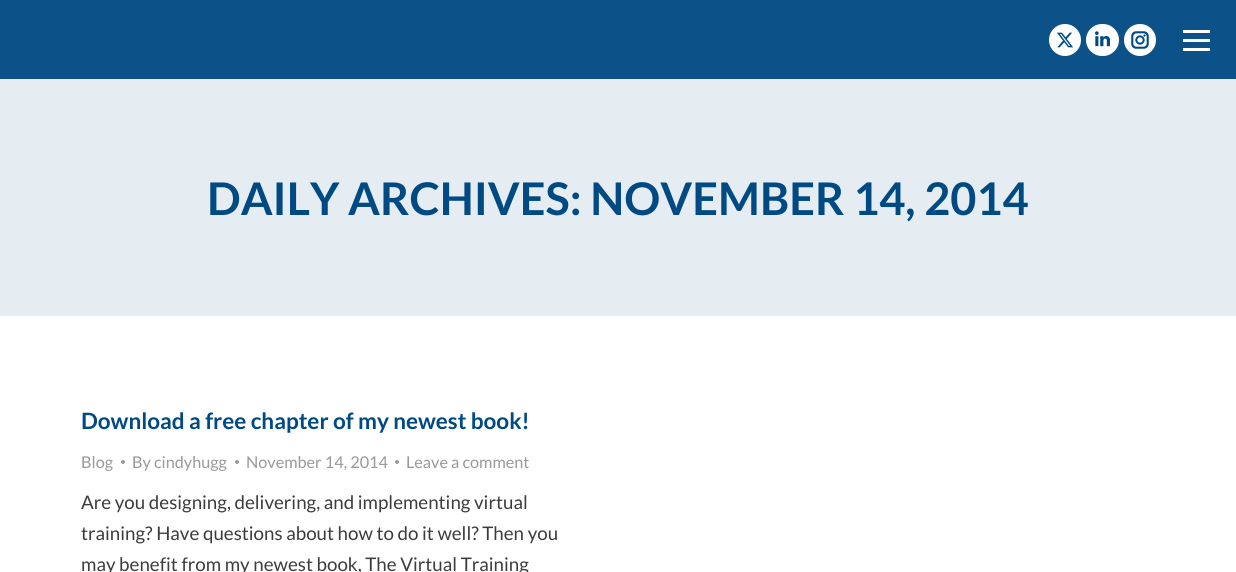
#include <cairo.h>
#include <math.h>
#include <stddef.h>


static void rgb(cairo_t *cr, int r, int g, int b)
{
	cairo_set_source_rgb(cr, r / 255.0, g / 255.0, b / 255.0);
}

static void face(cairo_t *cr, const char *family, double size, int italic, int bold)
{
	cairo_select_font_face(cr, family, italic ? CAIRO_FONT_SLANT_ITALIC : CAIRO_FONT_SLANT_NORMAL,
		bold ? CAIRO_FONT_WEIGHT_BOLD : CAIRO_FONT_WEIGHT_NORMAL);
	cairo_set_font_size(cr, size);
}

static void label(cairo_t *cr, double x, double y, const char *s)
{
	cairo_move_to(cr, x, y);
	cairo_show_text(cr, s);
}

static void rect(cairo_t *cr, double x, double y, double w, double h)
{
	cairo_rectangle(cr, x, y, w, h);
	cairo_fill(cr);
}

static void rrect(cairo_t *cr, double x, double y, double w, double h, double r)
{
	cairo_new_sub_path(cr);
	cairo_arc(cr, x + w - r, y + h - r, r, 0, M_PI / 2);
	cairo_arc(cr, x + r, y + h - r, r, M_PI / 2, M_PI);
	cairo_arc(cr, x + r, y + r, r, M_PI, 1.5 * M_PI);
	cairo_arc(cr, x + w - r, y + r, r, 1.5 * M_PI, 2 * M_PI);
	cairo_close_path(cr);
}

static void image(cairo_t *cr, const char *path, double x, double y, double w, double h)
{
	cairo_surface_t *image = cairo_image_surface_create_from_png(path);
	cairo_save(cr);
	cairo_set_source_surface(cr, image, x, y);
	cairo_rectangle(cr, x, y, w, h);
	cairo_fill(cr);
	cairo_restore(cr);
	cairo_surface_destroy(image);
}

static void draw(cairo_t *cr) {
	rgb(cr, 255, 255, 255);
	cairo_paint(cr);
	cairo_set_source_rgba(cr, 0.004, 0.286, 0.506, 0.95);
	rect(cr, 0, 0, 1236, 79);
	rgb(cr, 255, 255, 255);
	cairo_arc(cr, 1065, 40, 16, 0, 2 * M_PI);
	cairo_fill(cr);
	image(cr, "image0.png", 1057, 32, 16, 16);
	rrect(cr, 1086, 24, 33, 32, 16);
	cairo_fill(cr);
	image(cr, "image1.png", 1095, 31, 15, 16);
	cairo_arc(cr, 1140, 40, 16, 0, 2 * M_PI);
	cairo_fill(cr);
	image(cr, "image2.png", 1131, 31, 18, 18);
	rect(cr, 1183, 30, 27, 3);
	rect(cr, 1183, 39, 27, 3);
	rect(cr, 1183, 48, 27, 3);
	rgb(cr, 229, 237, 242);
	rect(cr, 0, 79, 1236, 237);
	face(cr, "Lato", 45, 0, 1);
	rgb(cr, 0, 74, 132);
	label(cr, 207, 215, "DAILY ARCHIVES: NOVEMBER 14, 2014");
	face(cr, "Lato", 22.5, 0, 1);
	label(cr, 81, 429, "Download a free chapter of my newest book!");
	face(cr, "Lato", 16.25, 0, 0);
	rgb(cr, 153, 153, 153);
	label(cr, 81, 468, "Blog");
	cairo_new_path(cr);
	cairo_arc(cr, 123, 462, 2, 0, 2 * M_PI);
	cairo_fill(cr);
	label(cr, 132, 468, "By cindyhugg");
	cairo_new_path(cr);
	cairo_arc(cr, 237, 462, 2, 0, 2 * M_PI);
	cairo_fill(cr);
	label(cr, 246, 468, "November 14, 2014");
	cairo_new_path(cr);
	cairo_arc(cr, 397, 462, 2, 0, 2 * M_PI);
	cairo_fill(cr);
	label(cr, 406, 468, "Leave a comment");
	face(cr, "Lato", 18.75, 0, 0);
	rgb(cr, 61, 59, 59);
	label(cr, 81, 509, "Are you designing, delivering, and implementing virtual");
	label(cr, 81, 540, "training? Have questions about how to do it well? Then you");
	label(cr, 81, 571, "may benefit from my newest book, The Virtual Training");
}

int main(void) {
	cairo_surface_t *surface = cairo_image_surface_create(CAIRO_FORMAT_RGB24, 1236, 572);
	cairo_t *cr = cairo_create(surface);
	cairo_font_options_t *options = cairo_font_options_create();
	cairo_font_options_set_hint_metrics(options, CAIRO_HINT_METRICS_OFF);
	cairo_font_options_set_hint_style(options, CAIRO_HINT_STYLE_NONE);
	cairo_set_font_options(cr, options);
	cairo_set_miter_limit(cr, 4);
	draw(cr);
	cairo_surface_write_to_png(surface, "render.png");
	cairo_font_options_destroy(options);
	cairo_destroy(cr);
	cairo_surface_destroy(surface);
	return 0;
}
